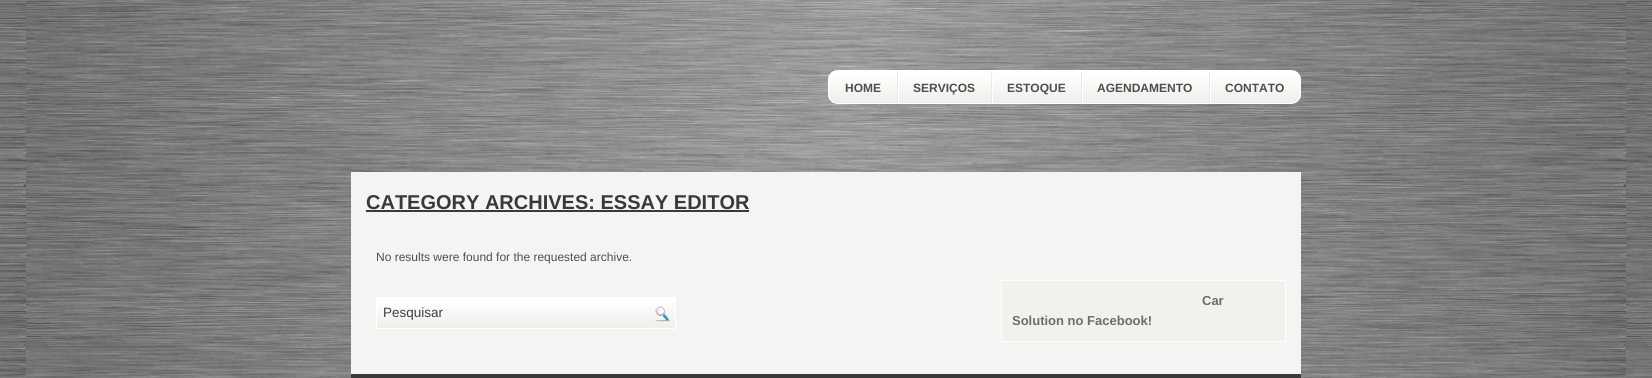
#include <cairo.h>
#include <math.h>
#include <stddef.h>


static void rgb(cairo_t *cr, int r, int g, int b)
{
	cairo_set_source_rgb(cr, r / 255.0, g / 255.0, b / 255.0);
}

static void face(cairo_t *cr, const char *family, double size, int italic, int bold)
{
	cairo_select_font_face(cr, family, italic ? CAIRO_FONT_SLANT_ITALIC : CAIRO_FONT_SLANT_NORMAL,
		bold ? CAIRO_FONT_WEIGHT_BOLD : CAIRO_FONT_WEIGHT_NORMAL);
	cairo_set_font_size(cr, size);
}

static void label(cairo_t *cr, double x, double y, const char *s)
{
	cairo_move_to(cr, x, y);
	cairo_show_text(cr, s);
}

static void rect(cairo_t *cr, double x, double y, double w, double h)
{
	cairo_rectangle(cr, x, y, w, h);
	cairo_fill(cr);
}

static void rrect(cairo_t *cr, double x, double y, double w, double h, double r)
{
	cairo_new_sub_path(cr);
	cairo_arc(cr, x + w - r, y + h - r, r, 0, M_PI / 2);
	cairo_arc(cr, x + r, y + h - r, r, M_PI / 2, M_PI);
	cairo_arc(cr, x + r, y + r, r, M_PI, 1.5 * M_PI);
	cairo_arc(cr, x + w - r, y + r, r, 1.5 * M_PI, 2 * M_PI);
	cairo_close_path(cr);
}

static void image(cairo_t *cr, const char *path, double x, double y, double w, double h)
{
	cairo_surface_t *image = cairo_image_surface_create_from_png(path);
	cairo_save(cr);
	cairo_set_source_surface(cr, image, x, y);
	cairo_rectangle(cr, x, y, w, h);
	cairo_fill(cr);
	cairo_restore(cr);
	cairo_surface_destroy(image);
}

static void draw(cairo_t *cr) {
	rgb(cr, 255, 255, 255);
	cairo_paint(cr);
	image(cr, "image0.png", 0, 0, 1652, 378);
	image(cr, "image1.png", 828, 71, 473, 32);
	rrect(cr, 828.5, 70.5, 472, 33, 9.5);
	rgb(cr, 255, 255, 255);
	cairo_set_line_width(cr, 1);
	cairo_stroke(cr);
	face(cr, "Liberation Sans", 12, 0, 1);
	rgb(cr, 80, 77, 77);
	label(cr, 845, 92, "HOME");
	image(cr, "image2.png", 897, 72, 2, 32);
	label(cr, 913, 92, "SERVIÇOS");
	image(cr, "image2.png", 991, 72, 2, 32);
	label(cr, 1007, 92, "ESTOQUE");
	image(cr, "image2.png", 1081, 72, 2, 32);
	label(cr, 1097, 92, "AGENDAMENTO");
	image(cr, "image2.png", 1209, 72, 2, 32);
	label(cr, 1225, 92, "CONTATO");
	rgb(cr, 244, 245, 243);
	rect(cr, 351, 172, 950, 202);
	face(cr, "Liberation Sans", 20, 0, 1);
	rgb(cr, 57, 57, 55);
	label(cr, 366, 209, "CATEGORY ARCHIVES: ESSAY EDITOR");
	rect(cr, 366, 210, 383, 2);
	face(cr, "Liberation Sans", 12, 0, 0);
	rgb(cr, 80, 77, 77);
	label(cr, 376, 261, "No results were found for the requested archive.");
	image(cr, "image3.png", 377, 298, 298, 30);
	cairo_rectangle(cr, 376.5, 297.5, 299, 31);
	rgb(cr, 255, 255, 255);
	cairo_stroke(cr);
	face(cr, "Liberation Sans", 13.5, 0, 0);
	rgb(cr, 63, 63, 63);
	label(cr, 383, 317, "Pesquisar");
	image(cr, "image4.png", 655, 306, 16, 16);
	rgb(cr, 241, 241, 238);
	cairo_rectangle(cr, 1001.5, 280.5, 284, 61);
	cairo_fill_preserve(cr);
	rgb(cr, 255, 255, 255);
	cairo_stroke(cr);
	face(cr, "Liberation Sans", 13, 0, 1);
	rgb(cr, 109, 109, 110);
	label(cr, 1202, 305, "Car");
	label(cr, 1012, 325, "Solution no Facebook!");
	rgb(cr, 59, 57, 57);
	rect(cr, 351, 374, 950, 4);
}

int main(void) {
	cairo_surface_t *surface = cairo_image_surface_create(CAIRO_FORMAT_RGB24, 1652, 378);
	cairo_t *cr = cairo_create(surface);
	cairo_font_options_t *options = cairo_font_options_create();
	cairo_font_options_set_hint_metrics(options, CAIRO_HINT_METRICS_OFF);
	cairo_font_options_set_hint_style(options, CAIRO_HINT_STYLE_NONE);
	cairo_set_font_options(cr, options);
	cairo_set_miter_limit(cr, 4);
	draw(cr);
	cairo_surface_write_to_png(surface, "render.png");
	cairo_font_options_destroy(options);
	cairo_destroy(cr);
	cairo_surface_destroy(surface);
	return 0;
}
